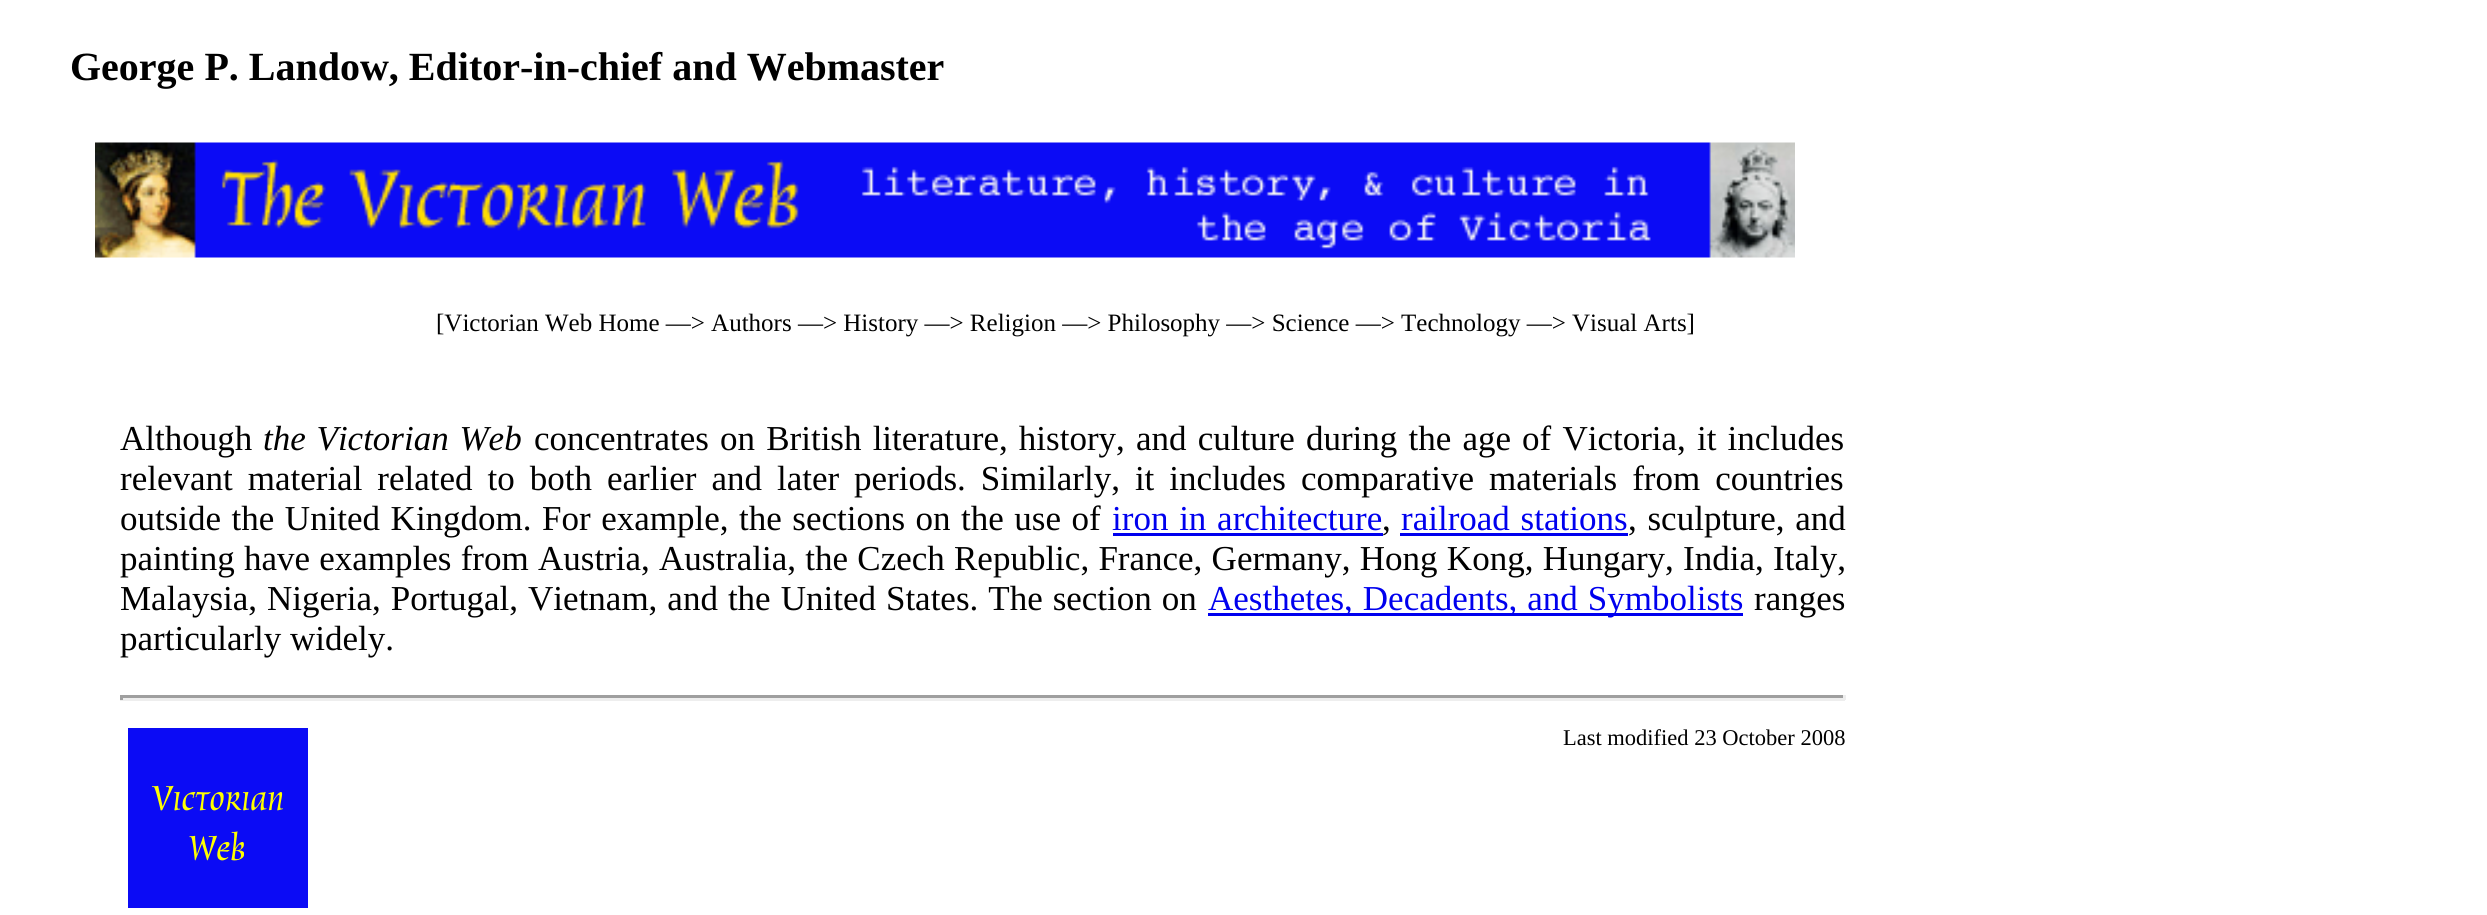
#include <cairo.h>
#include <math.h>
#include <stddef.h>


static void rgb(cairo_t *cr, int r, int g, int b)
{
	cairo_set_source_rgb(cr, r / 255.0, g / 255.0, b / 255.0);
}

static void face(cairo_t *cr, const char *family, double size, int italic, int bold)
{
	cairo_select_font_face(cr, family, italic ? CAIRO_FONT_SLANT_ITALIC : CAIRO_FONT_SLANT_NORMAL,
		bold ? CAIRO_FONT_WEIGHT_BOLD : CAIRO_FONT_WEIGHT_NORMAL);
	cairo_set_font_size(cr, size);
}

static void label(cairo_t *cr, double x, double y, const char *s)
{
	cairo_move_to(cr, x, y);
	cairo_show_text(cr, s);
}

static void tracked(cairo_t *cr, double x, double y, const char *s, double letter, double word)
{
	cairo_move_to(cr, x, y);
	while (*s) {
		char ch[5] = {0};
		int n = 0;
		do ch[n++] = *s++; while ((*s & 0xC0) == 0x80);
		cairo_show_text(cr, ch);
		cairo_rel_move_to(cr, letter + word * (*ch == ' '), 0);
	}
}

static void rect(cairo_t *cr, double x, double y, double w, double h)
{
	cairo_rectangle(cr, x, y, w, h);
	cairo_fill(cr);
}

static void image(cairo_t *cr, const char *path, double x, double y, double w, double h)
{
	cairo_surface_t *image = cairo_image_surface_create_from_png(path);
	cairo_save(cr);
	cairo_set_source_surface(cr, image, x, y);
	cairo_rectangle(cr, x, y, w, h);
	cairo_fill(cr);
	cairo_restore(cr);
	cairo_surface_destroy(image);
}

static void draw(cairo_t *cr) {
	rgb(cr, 255, 255, 255);
	cairo_paint(cr);
	face(cr, "Liberation Serif", 40, 0, 1);
	rgb(cr, 0, 0, 0);
	label(cr, 70, 80, "George P. Landow, Editor-in-chief and Webmaster");
	image(cr, "image0.png", 95, 142, 1700, 116);
	face(cr, "Liberation Serif", 25, 0, 0);
	label(cr, 436, 331, "[Victorian Web Home —> Authors —> History —> Religion —> Philosophy —> Science —> Technology —> Visual Arts]");
	face(cr, "Liberation Serif", 35, 0, 0);
	label(cr, 120, 450, "Although");
	face(cr, "Liberation Serif", 35, 1, 0);
	tracked(cr, 263, 450, "the Victorian Web", 0, 2);
	face(cr, "Liberation Serif", 35, 0, 0);
	tracked(cr, 534, 450, "concentrates on British literature, history, and culture during the age of Victoria, it includes", 0, 2.4);
	tracked(cr, 120, 490, "relevant material related to both earlier and later periods. Similarly, it includes comparative materials from countries", 0, 6.25);
	tracked(cr, 120, 530, "outside the United Kingdom. For example, the sections on the use of", 0, 1.75);
	rgb(cr, 0, 0, 238);
	tracked(cr, 1112, 530, "iron in architecture", 0, 2);
	rect(cr, 1113, 533, 270, 3);
	rgb(cr, 0, 0, 0);
	label(cr, 1382, 530, ",");
	rgb(cr, 0, 0, 238);
	tracked(cr, 1401, 530, "railroad stations", 0, 2);
	rect(cr, 1400, 533, 228, 3);
	rgb(cr, 0, 0, 0);
	tracked(cr, 1628, 530, ", sculpture, and", 0, 2);
	tracked(cr, 120, 570, "painting have examples from Austria, Australia, the Czech Republic, France, Germany, Hong Kong, Hungary, India, Italy,", 0, 0.5);
	tracked(cr, 120, 610, "Malaysia, Nigeria, Portugal, Vietnam, and the United States. The section on", 0, 1.25);
	rgb(cr, 0, 0, 238);
	rect(cr, 1208, 613, 535, 3);
	tracked(cr, 1208, 610, "Aesthetes, Decadents, and Symbolists", 0, 1.25);
	rgb(cr, 0, 0, 0);
	label(cr, 1754, 610, "ranges");
	label(cr, 120, 650, "particularly widely.");
	rgb(cr, 159, 159, 159);
	rect(cr, 120, 695, 1725, 3);
	rgb(cr, 238, 238, 238);
	rect(cr, 1843, 695, 3, 5);
	rect(cr, 120, 698, 1725, 3);
	rgb(cr, 159, 159, 159);
	rect(cr, 120, 695, 3, 5);
	face(cr, "Liberation Serif", 22.5, 0, 0);
	rgb(cr, 0, 0, 0);
	label(cr, 1563, 745, "Last modified 23 October 2008");
	rgb(cr, 11, 11, 245);
	rect(cr, 128, 728, 180, 180);
	face(cr, "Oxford", 40, 0, 0);
	rgb(cr, 255, 255, 0);
	label(cr, 152, 810, "Victorian");
	label(cr, 189, 860, "Web");
}

int main(void) {
	cairo_surface_t *surface = cairo_image_surface_create(CAIRO_FORMAT_RGB24, 2487, 915);
	cairo_t *cr = cairo_create(surface);
	cairo_font_options_t *options = cairo_font_options_create();
	cairo_font_options_set_hint_metrics(options, CAIRO_HINT_METRICS_OFF);
	cairo_font_options_set_hint_style(options, CAIRO_HINT_STYLE_NONE);
	cairo_set_font_options(cr, options);
	cairo_set_miter_limit(cr, 4);
	draw(cr);
	cairo_surface_write_to_png(surface, "render.png");
	cairo_font_options_destroy(options);
	cairo_destroy(cr);
	cairo_surface_destroy(surface);
	return 0;
}
